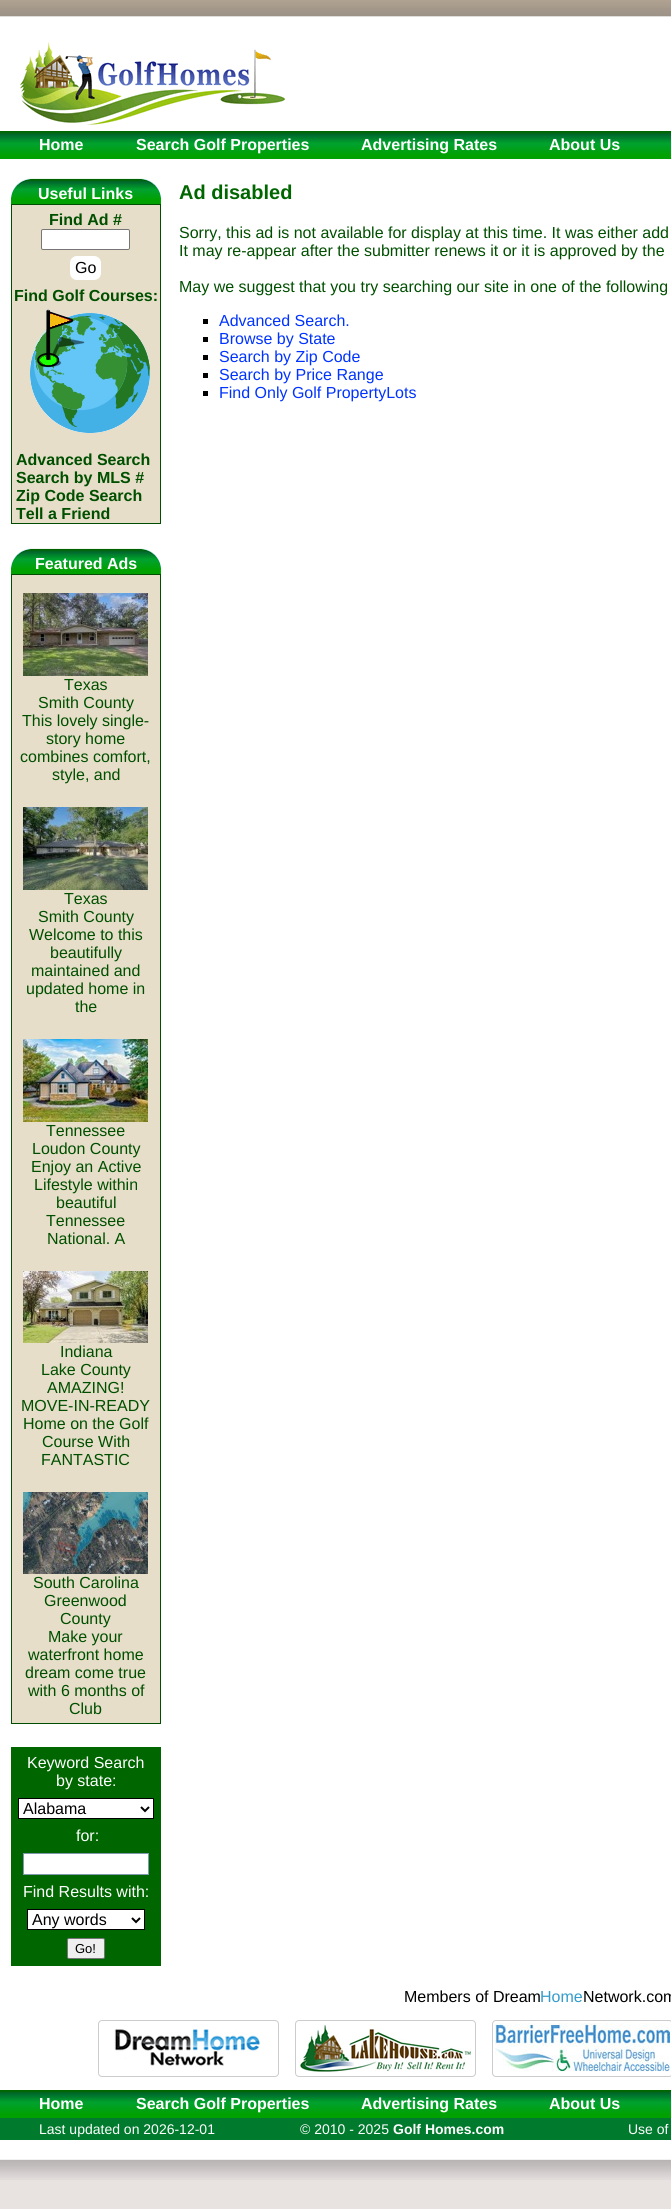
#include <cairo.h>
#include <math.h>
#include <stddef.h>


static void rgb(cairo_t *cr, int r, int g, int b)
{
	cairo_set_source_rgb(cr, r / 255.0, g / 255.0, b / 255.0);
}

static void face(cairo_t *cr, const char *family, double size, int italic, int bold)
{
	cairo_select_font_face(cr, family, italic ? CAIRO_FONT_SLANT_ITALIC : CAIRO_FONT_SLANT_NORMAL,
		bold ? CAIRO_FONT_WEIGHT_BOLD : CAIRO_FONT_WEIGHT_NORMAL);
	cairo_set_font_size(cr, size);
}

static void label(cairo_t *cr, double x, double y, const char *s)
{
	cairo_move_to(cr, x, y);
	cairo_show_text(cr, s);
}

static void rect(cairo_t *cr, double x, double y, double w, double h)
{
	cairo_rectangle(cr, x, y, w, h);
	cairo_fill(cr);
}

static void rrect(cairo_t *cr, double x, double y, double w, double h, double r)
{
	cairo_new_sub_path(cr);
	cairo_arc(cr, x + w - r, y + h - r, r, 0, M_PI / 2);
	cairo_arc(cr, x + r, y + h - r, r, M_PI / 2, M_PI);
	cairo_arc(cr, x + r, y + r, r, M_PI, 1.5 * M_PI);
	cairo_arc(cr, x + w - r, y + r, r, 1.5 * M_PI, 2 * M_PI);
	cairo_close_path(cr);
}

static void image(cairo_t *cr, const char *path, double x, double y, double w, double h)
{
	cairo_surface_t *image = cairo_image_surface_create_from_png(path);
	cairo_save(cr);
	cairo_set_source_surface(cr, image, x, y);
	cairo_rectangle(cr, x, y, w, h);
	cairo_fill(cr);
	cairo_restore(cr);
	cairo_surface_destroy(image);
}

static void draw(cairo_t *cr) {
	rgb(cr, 232, 226, 225);
	cairo_paint(cr);
	image(cr, "image0.png", 0, 0, 671, 17);
	image(cr, "image1.png", 0, 0, 671, 35);
	rgb(cr, 255, 255, 255);
	rect(cr, 0, 35, 671, 2055);
	image(cr, "image2.png", 20, 41, 265, 84);
	image(cr, "image3.png", 0, 131, 671, 28);
	face(cr, "Liberation Sans", 16, 0, 1);
	label(cr, 39, 150, "Home");
	label(cr, 136, 150, "Search Golf Properties");
	label(cr, 361, 150, "Advertising Rates");
	label(cr, 549, 150, "About Us");
	image(cr, "image4.png", 11, 178, 150, 26);
	label(cr, 38, 199, "Useful Links");
	rgb(cr, 230, 222, 200);
	cairo_rectangle(cr, 11.5, 204.5, 149, 319);
	cairo_fill_preserve(cr);
	rgb(cr, 0, 79, 0);
	cairo_set_line_width(cr, 1);
	cairo_stroke(cr);
	label(cr, 49, 225, "Find Ad #");
	rgb(cr, 255, 255, 255);
	rrect(cr, 41.5, 229.5, 88, 20, 1.5);
	cairo_fill_preserve(cr);
	rgb(cr, 118, 118, 118);
	cairo_stroke(cr);
	rgb(cr, 255, 255, 255);
	rrect(cr, 70, 256, 31, 24, 7);
	cairo_fill(cr);
	face(cr, "Liberation Sans", 16, 0, 0);
	rgb(cr, 0, 0, 0);
	label(cr, 75, 273, "Go");
	face(cr, "Liberation Sans", 16, 0, 1);
	rgb(cr, 0, 79, 0);
	label(cr, 14, 301, "Find Golf Courses:");
	image(cr, "image5.png", 30, 309, 120, 124);
	label(cr, 16, 465, "Advanced Search");
	label(cr, 16, 483, "Search by MLS #");
	label(cr, 16, 501, "Zip Code Search");
	label(cr, 16, 519, "Tell a Friend");
	image(cr, "image4.png", 11, 548, 150, 26);
	rgb(cr, 255, 255, 255);
	label(cr, 35, 569, "Featured Ads");
	rgb(cr, 230, 222, 200);
	cairo_rectangle(cr, 11.5, 574.5, 149, 1149);
	cairo_fill_preserve(cr);
	rgb(cr, 0, 79, 0);
	cairo_stroke(cr);
	image(cr, "image6.png", 23, 593, 125, 83);
	face(cr, "Liberation Sans", 16, 0, 0);
	label(cr, 64, 690, "Texas");
	label(cr, 38, 708, "Smith County");
	label(cr, 22, 726, "This lovely single-");
	label(cr, 46, 744, "story home");
	label(cr, 20, 762, "combines comfort,");
	label(cr, 52, 780, "style, and");
	image(cr, "image7.png", 23, 807, 125, 83);
	label(cr, 64, 904, "Texas");
	label(cr, 38, 922, "Smith County");
	label(cr, 29, 940, "Welcome to this");
	label(cr, 50, 958, "beautifully");
	label(cr, 31, 976, "maintained and");
	label(cr, 26, 994, "updated home in");
	label(cr, 75, 1012, "the");
	image(cr, "image8.png", 23, 1039, 125, 83);
	label(cr, 46, 1136, "Tennessee");
	label(cr, 32, 1154, "Loudon County");
	label(cr, 31, 1172, "Enjoy an Active");
	label(cr, 34, 1190, "Lifestyle within");
	label(cr, 56, 1208, "beautiful");
	label(cr, 46, 1226, "Tennessee");
	label(cr, 47, 1244, "National. A");
	image(cr, "image9.png", 23, 1271, 125, 72);
	label(cr, 60, 1357, "Indiana");
	label(cr, 41, 1375, "Lake County");
	label(cr, 47, 1393, "AMAZING!");
	label(cr, 21, 1411, "MOVE-IN-READY");
	label(cr, 23, 1429, "Home on the Golf");
	label(cr, 42, 1447, "Course With");
	label(cr, 41, 1465, "FANTASTIC");
	image(cr, "image10.png", 23, 1492, 125, 82);
	label(cr, 33, 1588, "South Carolina");
	label(cr, 44, 1606, "Greenwood");
	label(cr, 60, 1624, "County");
	label(cr, 48, 1642, "Make your");
	label(cr, 28, 1660, "waterfront home");
	label(cr, 25, 1678, "dream come true");
	label(cr, 28, 1696, "with 6 months of");
	label(cr, 69, 1714, "Club");
	rgb(cr, 0, 102, 0);
	rect(cr, 11, 1747, 150, 219);
	rgb(cr, 255, 255, 255);
	label(cr, 27, 1768, "Keyword Search");
	label(cr, 56, 1786, "by state:");
	cairo_rectangle(cr, 18.5, 1798.5, 135, 20);
	cairo_fill_preserve(cr);
	rgb(cr, 0, 0, 0);
	cairo_stroke(cr);
	cairo_new_path(cr);
	cairo_move_to(cr, 141, 1807);
	cairo_line_to(cr, 145, 1811);
	cairo_line_to(cr, 149, 1807);
	cairo_set_line_width(cr, 2);
	cairo_stroke(cr);
	label(cr, 23, 1814, "Alabama");
	rgb(cr, 255, 255, 255);
	label(cr, 76, 1841, "for:");
	cairo_rectangle(cr, 23.5, 1853.5, 125, 21);
	cairo_fill_preserve(cr);
	rgb(cr, 128, 152, 176);
	cairo_set_line_width(cr, 1);
	cairo_stroke(cr);
	rgb(cr, 255, 255, 255);
	label(cr, 23, 1897, "Find Results with:");
	cairo_rectangle(cr, 27.5, 1909.5, 117, 20);
	cairo_fill_preserve(cr);
	rgb(cr, 0, 0, 0);
	cairo_stroke(cr);
	cairo_new_path(cr);
	cairo_move_to(cr, 132, 1918);
	cairo_line_to(cr, 136, 1922);
	cairo_line_to(cr, 140, 1918);
	cairo_set_line_width(cr, 2);
	cairo_stroke(cr);
	label(cr, 32, 1925, "Any words");
	rgb(cr, 239, 239, 239);
	rrect(cr, 67.5, 1938.5, 37, 20, 1.5);
	cairo_fill_preserve(cr);
	rgb(cr, 118, 118, 118);
	cairo_set_line_width(cr, 1);
	cairo_stroke(cr);
	face(cr, "Liberation Sans", 13, 0, 0);
	rgb(cr, 0, 0, 0);
	label(cr, 75, 1953, "Go!");
	face(cr, "Liberation Sans", 20, 0, 1);
	rgb(cr, 0, 102, 0);
	label(cr, 179, 199, "Ad disabled");
	face(cr, "Liberation Sans", 16, 0, 0);
	rgb(cr, 0, 79, 0);
	label(cr, 179, 238, "Sorry, this ad is not available for display at this time. It was either add");
	label(cr, 179, 256, "It may re-appear after the submitter renews it or it is approved by the");
	label(cr, 179, 292, "May we suggest that you try searching our site in one of the following");
	rgb(cr, 0, 0, 0);
	rect(cr, 203, 319, 5, 5);
	rgb(cr, 0, 51, 255);
	label(cr, 219, 326, "Advanced Search.");
	rgb(cr, 0, 0, 0);
	rect(cr, 203, 337, 5, 5);
	rgb(cr, 0, 51, 255);
	label(cr, 219, 344, "Browse by State");
	rgb(cr, 0, 0, 0);
	rect(cr, 203, 355, 5, 5);
	rgb(cr, 0, 51, 255);
	label(cr, 219, 362, "Search by Zip Code");
	rgb(cr, 0, 0, 0);
	rect(cr, 203, 373, 5, 5);
	rgb(cr, 0, 51, 255);
	label(cr, 219, 380, "Search by Price Range");
	rgb(cr, 0, 0, 0);
	rect(cr, 203, 391, 5, 5);
	rgb(cr, 0, 51, 255);
	label(cr, 219, 398, "Find Only Golf PropertyLots");
	rgb(cr, 0, 0, 0);
	label(cr, 404, 2002, "Members of Dream");
	rgb(cr, 51, 156, 203);
	label(cr, 540, 2002, "Home");
	rgb(cr, 0, 0, 0);
	label(cr, 583, 2002, "Network.com");
	image(cr, "image11.png", 114, 2029, 146, 37);
	rrect(cr, 98.5, 2020.5, 180, 56, 3.5);
	rgb(cr, 204, 204, 204);
	cairo_stroke(cr);
	rrect(cr, 295.5, 2020.5, 180, 56, 3.5);
	cairo_stroke(cr);
	image(cr, "image12.png", 298, 2024, 174, 49);
	rrect(cr, 492.5, 2020.5, 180, 56, 3.5);
	cairo_stroke(cr);
	image(cr, "image13.png", 495, 2023, 175, 49);
	image(cr, "image3.png", 0, 2090, 671, 28);
	face(cr, "Liberation Sans", 16, 0, 1);
	rgb(cr, 255, 255, 255);
	label(cr, 39, 2109, "Home");
	label(cr, 136, 2109, "Search Golf Properties");
	label(cr, 361, 2109, "Advertising Rates");
	label(cr, 549, 2109, "About Us");
	rgb(cr, 0, 122, 45);
	rect(cr, 0, 2118, 671, 22);
	face(cr, "Liberation Sans", 14, 0, 0);
	rgb(cr, 255, 255, 255);
	label(cr, 39, 2134, "Last updated on 2026-12-01");
	label(cr, 300, 2134, "© 2010 - 2025");
	face(cr, "Liberation Sans", 14, 0, 1);
	label(cr, 393, 2134, "Golf Homes.com");
	face(cr, "Liberation Sans", 14, 0, 0);
	label(cr, 628, 2134, "Use of");
	image(cr, "image14.png", 0, 2140, 671, 40);
}

int main(void) {
	cairo_surface_t *surface = cairo_image_surface_create(CAIRO_FORMAT_RGB24, 671, 2209);
	cairo_t *cr = cairo_create(surface);
	cairo_font_options_t *options = cairo_font_options_create();
	cairo_font_options_set_hint_metrics(options, CAIRO_HINT_METRICS_OFF);
	cairo_font_options_set_hint_style(options, CAIRO_HINT_STYLE_NONE);
	cairo_set_font_options(cr, options);
	cairo_set_miter_limit(cr, 4);
	draw(cr);
	cairo_surface_write_to_png(surface, "render.png");
	cairo_font_options_destroy(options);
	cairo_destroy(cr);
	cairo_surface_destroy(surface);
	return 0;
}
